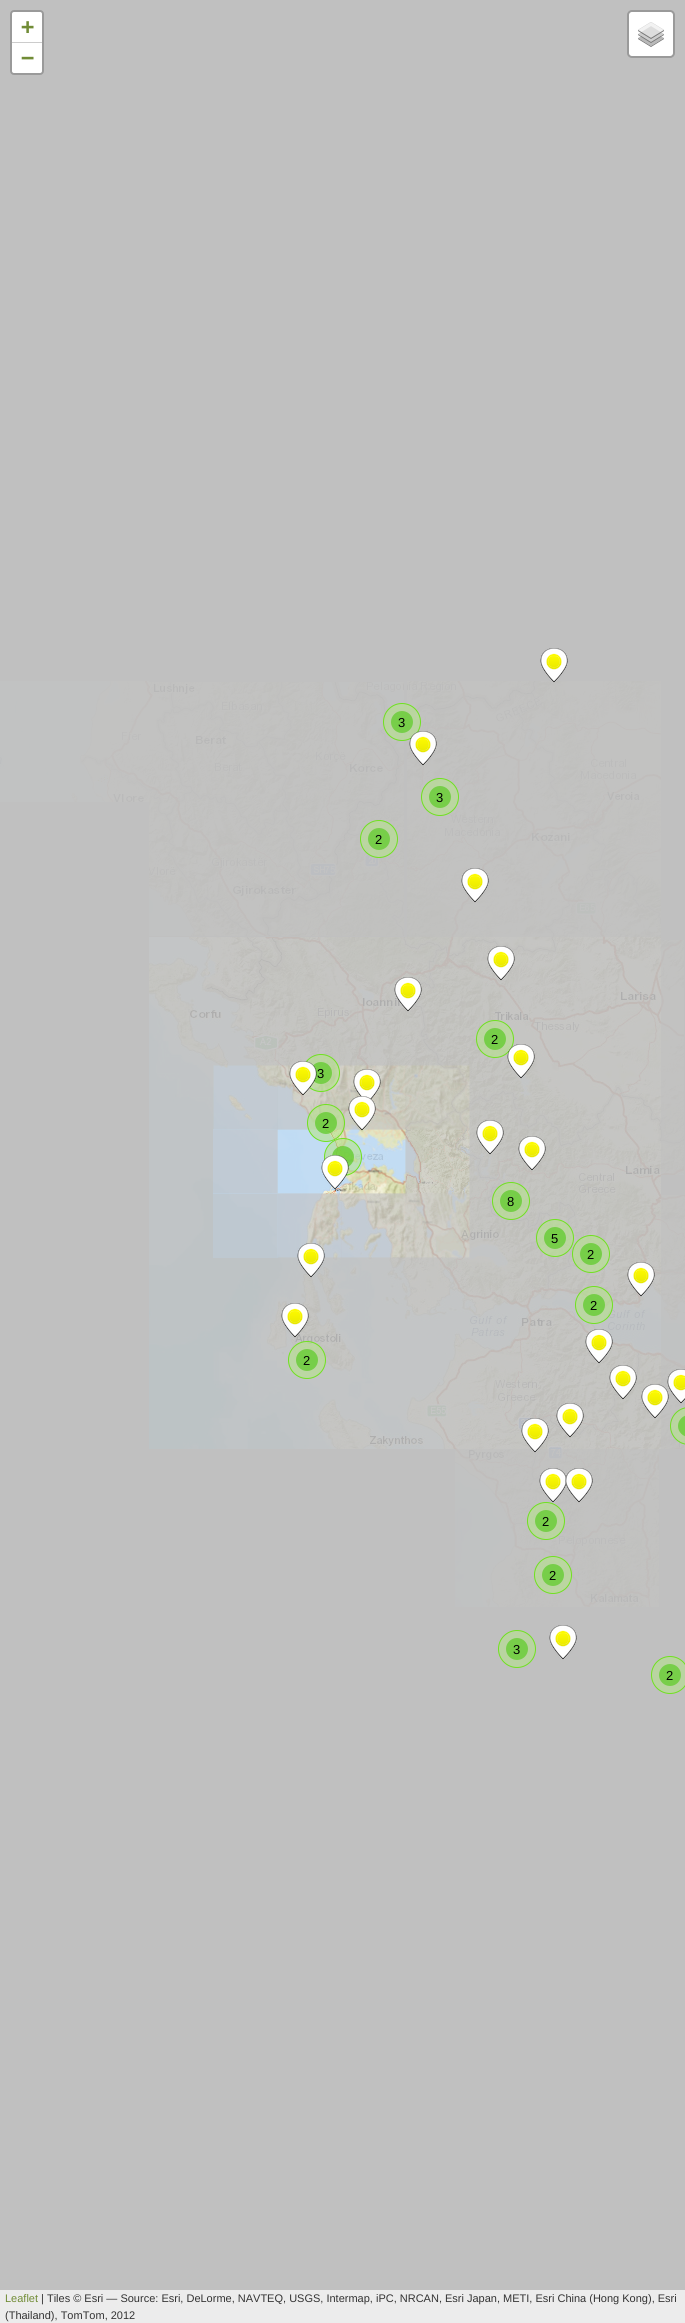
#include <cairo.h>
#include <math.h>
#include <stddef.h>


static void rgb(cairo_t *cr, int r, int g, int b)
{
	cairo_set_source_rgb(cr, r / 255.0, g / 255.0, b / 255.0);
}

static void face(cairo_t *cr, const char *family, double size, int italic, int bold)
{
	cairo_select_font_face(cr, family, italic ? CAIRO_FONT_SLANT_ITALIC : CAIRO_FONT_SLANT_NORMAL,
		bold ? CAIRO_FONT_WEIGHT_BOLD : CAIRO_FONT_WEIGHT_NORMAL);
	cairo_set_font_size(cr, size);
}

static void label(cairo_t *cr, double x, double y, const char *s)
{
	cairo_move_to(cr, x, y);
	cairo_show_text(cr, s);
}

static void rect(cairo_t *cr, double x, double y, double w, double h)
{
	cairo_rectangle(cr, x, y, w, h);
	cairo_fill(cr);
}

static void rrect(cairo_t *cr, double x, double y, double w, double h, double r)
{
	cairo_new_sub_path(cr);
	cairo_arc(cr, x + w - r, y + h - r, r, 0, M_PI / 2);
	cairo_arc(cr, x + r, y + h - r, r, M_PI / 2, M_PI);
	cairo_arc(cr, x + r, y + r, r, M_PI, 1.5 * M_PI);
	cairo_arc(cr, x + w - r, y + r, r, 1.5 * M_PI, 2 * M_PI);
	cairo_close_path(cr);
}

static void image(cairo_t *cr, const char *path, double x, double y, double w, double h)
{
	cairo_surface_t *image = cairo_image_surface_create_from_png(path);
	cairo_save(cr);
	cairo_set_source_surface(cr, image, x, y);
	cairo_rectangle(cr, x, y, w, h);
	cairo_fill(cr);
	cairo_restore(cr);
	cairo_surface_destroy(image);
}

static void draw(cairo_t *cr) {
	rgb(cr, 192, 192, 192);
	cairo_paint(cr);
	rrect(cr, 11, 11, 32, 63, 3);
	rgb(cr, 154, 154, 154);
	cairo_stroke(cr);
	rgb(cr, 255, 255, 255);
	cairo_new_path(cr);
	cairo_move_to(cr, 14, 12);
	cairo_line_to(cr, 40, 12);
	cairo_curve_to(cr, 41, 12, 42, 13, 42, 14);
	cairo_line_to(cr, 42, 43);
	cairo_line_to(cr, 12, 43);
	cairo_line_to(cr, 12, 14);
	cairo_curve_to(cr, 12, 13, 13, 12, 14, 12);
	cairo_close_path(cr);
	cairo_fill(cr);
	rgb(cr, 204, 204, 204);
	rect(cr, 12, 42, 30, 1);
	face(cr, "DejaVu Sans Mono", 22, 0, 1);
	rgb(cr, 113, 140, 54);
	label(cr, 21, 34, "+");
	rgb(cr, 255, 255, 255);
	cairo_new_path(cr);
	cairo_move_to(cr, 12, 43);
	cairo_line_to(cr, 42, 43);
	cairo_line_to(cr, 42, 71);
	cairo_curve_to(cr, 42, 72, 41, 73, 40, 73);
	cairo_line_to(cr, 14, 73);
	cairo_curve_to(cr, 13, 73, 12, 72, 12, 71);
	cairo_close_path(cr);
	cairo_fill(cr);
	rgb(cr, 113, 140, 54);
	label(cr, 21, 65, "−");
	rgb(cr, 255, 255, 255);
	rrect(cr, 628, 11, 46, 46, 4);
	cairo_fill_preserve(cr);
	rgb(cr, 154, 154, 154);
	cairo_stroke(cr);
	image(cr, "image0.png", 638, 22, 26, 25);
	rgb(cr, 236, 236, 236);
	rect(cr, 0, 2290, 685, 33);
	face(cr, "Liberation Sans", 11, 0, 0);
	rgb(cr, 113, 140, 54);
	label(cr, 5, 2302, "Leaflet");
	rgb(cr, 51, 51, 51);
	label(cr, 41, 2302, "| Tiles © Esri — Source: Esri, DeLorme, NAVTEQ, USGS, Intermap, iPC, NRCAN, Esri Japan, METI, Esri China (Hong Kong), Esri");
	label(cr, 5, 2319, "(Thailand), TomTom, 2012");
	image(cr, "image1.png", 0, 681, 149, 121);
	image(cr, "image2.png", 149, 682, 255, 254);
	image(cr, "image3.png", 407, 681, 254, 256);
	image(cr, "image15.png", 277, 1129, 65, 65);
	image(cr, "image16.png", 341, 1129, 65, 65);
	image(cr, "image12.png", 277, 1065, 65, 65);
	rgb(cr, 192, 199, 207);
	rect(cr, 213, 1129, 64, 65);
	image(cr, "image11.png", 213, 1065, 65, 65);
	image(cr, "image13.png", 341, 1065, 65, 65);
	image(cr, "image4.png", 149, 937, 256, 256);
	image(cr, "image18.png", 277, 1193, 65, 65);
	image(cr, "image19.png", 341, 1193, 65, 65);
	image(cr, "image17.png", 405, 1129, 65, 65);
	image(cr, "image14.png", 405, 1065, 65, 65);
	image(cr, "image5.png", 405, 937, 256, 256);
	image(cr, "image6.png", 661, 940, 23, 235);
	cairo_set_source_rgba(cr, 0.753, 0.851, 0.949, 0.24);
	rect(cr, 213, 1193, 65, 65);
	image(cr, "image7.png", 149, 1193, 256, 256);
	image(cr, "image20.png", 405, 1193, 65, 65);
	image(cr, "image8.png", 405, 1193, 256, 256);
	image(cr, "image9.png", 661, 1195, 24, 254);
	image(cr, "image10.png", 455, 1449, 204, 158);
	image(cr, "image21.png", 540, 648, 28, 35);
	cairo_set_source_rgba(cr, 0.71, 0.886, 0.549, 0.6);
	cairo_arc(cr, 402, 722, 18.5, 0, 2 * M_PI);
	cairo_fill_preserve(cr);
	rgb(cr, 112, 225, 32);
	cairo_set_line_width(cr, 1);
	cairo_stroke(cr);
	rgb(cr, 119, 206, 73);
	cairo_arc(cr, 402, 722, 11, 0, 2 * M_PI);
	cairo_fill(cr);
	face(cr, "Liberation Sans", 13, 0, 0);
	rgb(cr, 0, 0, 0);
	label(cr, 398, 727, "3");
	image(cr, "image22.png", 409, 731, 28, 35);
	cairo_set_source_rgba(cr, 0.71, 0.886, 0.549, 0.6);
	cairo_arc(cr, 440, 797, 18.5, 0, 2 * M_PI);
	cairo_fill_preserve(cr);
	rgb(cr, 112, 225, 32);
	cairo_stroke(cr);
	rgb(cr, 119, 206, 73);
	cairo_arc(cr, 440, 797, 11, 0, 2 * M_PI);
	cairo_fill(cr);
	rgb(cr, 0, 0, 0);
	label(cr, 436, 802, "3");
	cairo_set_source_rgba(cr, 0.71, 0.886, 0.549, 0.6);
	cairo_new_path(cr);
	cairo_arc(cr, 379, 839, 18.5, 0, 2 * M_PI);
	cairo_fill_preserve(cr);
	rgb(cr, 112, 225, 32);
	cairo_stroke(cr);
	rgb(cr, 119, 206, 73);
	cairo_arc(cr, 379, 839, 11, 0, 2 * M_PI);
	cairo_fill(cr);
	rgb(cr, 0, 0, 0);
	label(cr, 375, 844, "2");
	image(cr, "image23.png", 461, 868, 28, 35);
	image(cr, "image24.png", 487, 946, 28, 35);
	image(cr, "image25.png", 394, 977, 28, 35);
	cairo_set_source_rgba(cr, 0.71, 0.886, 0.549, 0.6);
	cairo_arc(cr, 495, 1039, 18.5, 0, 2 * M_PI);
	cairo_fill_preserve(cr);
	rgb(cr, 112, 225, 32);
	cairo_stroke(cr);
	cairo_set_source_rgba(cr, 0.4, 0.8, 0.2, 0.8);
	cairo_arc(cr, 495, 1039, 11, 0, 2 * M_PI);
	cairo_fill(cr);
	rgb(cr, 0, 0, 0);
	label(cr, 491, 1044, "2");
	cairo_set_source_rgba(cr, 0.71, 0.886, 0.549, 0.6);
	cairo_new_path(cr);
	cairo_arc(cr, 321, 1073, 18.5, 0, 2 * M_PI);
	cairo_fill_preserve(cr);
	rgb(cr, 112, 225, 32);
	cairo_stroke(cr);
	cairo_set_source_rgba(cr, 0.4, 0.8, 0.2, 0.8);
	cairo_arc(cr, 321, 1073, 11, 0, 2 * M_PI);
	cairo_fill(cr);
	image(cr, "image26.png", 289, 1061, 28, 35);
	rgb(cr, 0, 0, 0);
	label(cr, 317, 1078, "3");
	image(cr, "image27.png", 353, 1069, 28, 32);
	image(cr, "image28.png", 507, 1044, 28, 35);
	cairo_set_source_rgba(cr, 0.71, 0.886, 0.549, 0.6);
	cairo_arc(cr, 326, 1123, 18.5, 0, 2 * M_PI);
	cairo_fill_preserve(cr);
	rgb(cr, 112, 225, 32);
	cairo_stroke(cr);
	cairo_set_source_rgba(cr, 0.4, 0.8, 0.2, 0.8);
	cairo_arc(cr, 326, 1123, 11, 0, 2 * M_PI);
	cairo_fill(cr);
	rgb(cr, 0, 0, 0);
	label(cr, 322, 1128, "2");
	image(cr, "image29.png", 348, 1096, 28, 35);
	image(cr, "image30.png", 476, 1120, 28, 35);
	image(cr, "image31.png", 518, 1136, 28, 35);
	cairo_set_source_rgba(cr, 0.71, 0.886, 0.549, 0.6);
	cairo_arc(cr, 343, 1157, 18.5, 0, 2 * M_PI);
	cairo_fill_preserve(cr);
	rgb(cr, 112, 225, 32);
	cairo_stroke(cr);
	cairo_set_source_rgba(cr, 0.4, 0.8, 0.2, 0.8);
	cairo_arc(cr, 343, 1157, 11, 0, 2 * M_PI);
	cairo_fill(cr);
	image(cr, "image32.png", 321, 1155, 28, 35);
	cairo_set_source_rgba(cr, 0.71, 0.886, 0.549, 0.6);
	cairo_arc(cr, 511, 1201, 18.5, 0, 2 * M_PI);
	cairo_fill_preserve(cr);
	rgb(cr, 112, 225, 32);
	cairo_stroke(cr);
	cairo_set_source_rgba(cr, 0.4, 0.8, 0.2, 0.8);
	cairo_arc(cr, 511, 1201, 11, 0, 2 * M_PI);
	cairo_fill(cr);
	rgb(cr, 0, 0, 0);
	label(cr, 507, 1206, "8");
	cairo_set_source_rgba(cr, 0.71, 0.886, 0.549, 0.6);
	cairo_new_path(cr);
	cairo_arc(cr, 555, 1238, 18.5, 0, 2 * M_PI);
	cairo_fill_preserve(cr);
	rgb(cr, 112, 225, 32);
	cairo_stroke(cr);
	cairo_set_source_rgba(cr, 0.4, 0.8, 0.2, 0.8);
	cairo_arc(cr, 555, 1238, 11, 0, 2 * M_PI);
	cairo_fill(cr);
	rgb(cr, 0, 0, 0);
	label(cr, 551, 1243, "5");
	image(cr, "image33.png", 297, 1243, 28, 35);
	cairo_set_source_rgba(cr, 0.71, 0.886, 0.549, 0.6);
	cairo_arc(cr, 591, 1254, 18.5, 0, 2 * M_PI);
	cairo_fill_preserve(cr);
	rgb(cr, 112, 225, 32);
	cairo_stroke(cr);
	cairo_set_source_rgba(cr, 0.4, 0.8, 0.2, 0.8);
	cairo_arc(cr, 591, 1254, 11, 0, 2 * M_PI);
	cairo_fill(cr);
	rgb(cr, 0, 0, 0);
	label(cr, 587, 1259, "2");
	image(cr, "image34.png", 627, 1262, 28, 35);
	image(cr, "image35.png", 281, 1303, 28, 35);
	cairo_set_source_rgba(cr, 0.71, 0.886, 0.549, 0.6);
	cairo_arc(cr, 594, 1305, 18.5, 0, 2 * M_PI);
	cairo_fill_preserve(cr);
	rgb(cr, 112, 225, 32);
	cairo_stroke(cr);
	cairo_set_source_rgba(cr, 0.4, 0.8, 0.2, 0.8);
	cairo_arc(cr, 594, 1305, 11, 0, 2 * M_PI);
	cairo_fill(cr);
	rgb(cr, 0, 0, 0);
	label(cr, 590, 1310, "2");
	cairo_set_source_rgba(cr, 0.71, 0.886, 0.549, 0.6);
	cairo_new_path(cr);
	cairo_arc(cr, 307, 1360, 18.5, 0, 2 * M_PI);
	cairo_fill_preserve(cr);
	rgb(cr, 112, 225, 32);
	cairo_stroke(cr);
	cairo_set_source_rgba(cr, 0.4, 0.8, 0.2, 0.8);
	cairo_arc(cr, 307, 1360, 11, 0, 2 * M_PI);
	cairo_fill(cr);
	rgb(cr, 0, 0, 0);
	label(cr, 303, 1365, "2");
	image(cr, "image36.png", 585, 1329, 28, 35);
	image(cr, "image37.png", 556, 1403, 28, 35);
	image(cr, "image38.png", 609, 1365, 28, 35);
	image(cr, "image40.png", 667, 1369, 18, 35);
	image(cr, "image39.png", 641, 1384, 28, 35);
	image(cr, "image41.png", 521, 1418, 28, 35);
	cairo_set_source_rgba(cr, 0.71, 0.886, 0.549, 0.6);
	cairo_new_path(cr);
	cairo_move_to(cr, 689, 1408);
	cairo_line_to(cr, 685, 1408);
	cairo_line_to(cr, 685, 1444);
	cairo_line_to(cr, 689, 1444);
	cairo_curve_to(cr, 679, 1444, 671, 1436, 671, 1426);
	cairo_curve_to(cr, 671, 1416, 679, 1408, 689, 1408);
	cairo_close_path(cr);
	cairo_fill(cr);
	rrect(cr, 670.5, 1407.5, 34, 37, 18.5);
	rgb(cr, 112, 225, 32);
	cairo_stroke(cr);
	rgb(cr, 119, 206, 73);
	cairo_new_path(cr);
	cairo_move_to(cr, 689, 1415);
	cairo_line_to(cr, 685, 1415);
	cairo_line_to(cr, 685, 1437);
	cairo_line_to(cr, 689, 1437);
	cairo_curve_to(cr, 683, 1437, 678, 1432, 678, 1426);
	cairo_curve_to(cr, 678, 1420, 683, 1415, 689, 1415);
	cairo_close_path(cr);
	cairo_fill(cr);
	image(cr, "image42.png", 539, 1468, 28, 35);
	image(cr, "image43.png", 565, 1468, 28, 35);
	cairo_set_source_rgba(cr, 0.71, 0.886, 0.549, 0.6);
	cairo_arc(cr, 546, 1521, 18.5, 0, 2 * M_PI);
	cairo_fill_preserve(cr);
	rgb(cr, 112, 225, 32);
	cairo_stroke(cr);
	rgb(cr, 119, 206, 73);
	cairo_arc(cr, 546, 1521, 11, 0, 2 * M_PI);
	cairo_fill(cr);
	rgb(cr, 0, 0, 0);
	label(cr, 542, 1526, "2");
	cairo_set_source_rgba(cr, 0.71, 0.886, 0.549, 0.6);
	cairo_new_path(cr);
	cairo_arc(cr, 553, 1575, 18.5, 0, 2 * M_PI);
	cairo_fill_preserve(cr);
	rgb(cr, 112, 225, 32);
	cairo_stroke(cr);
	rgb(cr, 119, 206, 73);
	cairo_arc(cr, 553, 1575, 11, 0, 2 * M_PI);
	cairo_fill(cr);
	rgb(cr, 0, 0, 0);
	label(cr, 549, 1580, "2");
	rgb(cr, 185, 212, 161);
	cairo_new_path(cr);
	cairo_arc(cr, 517, 1649, 18.5, 0, 2 * M_PI);
	cairo_fill_preserve(cr);
	rgb(cr, 112, 225, 32);
	cairo_stroke(cr);
	rgb(cr, 119, 206, 73);
	cairo_arc(cr, 517, 1649, 11, 0, 2 * M_PI);
	cairo_fill(cr);
	rgb(cr, 0, 0, 0);
	label(cr, 513, 1654, "3");
	image(cr, "image44.png", 549, 1625, 28, 35);
	rgb(cr, 185, 212, 161);
	cairo_arc(cr, 670, 1675, 18.5, 0, 2 * M_PI);
	cairo_fill_preserve(cr);
	rgb(cr, 112, 225, 32);
	cairo_stroke(cr);
	rgb(cr, 119, 206, 73);
	cairo_arc(cr, 670, 1675, 11, 0, 2 * M_PI);
	cairo_fill(cr);
	rgb(cr, 0, 0, 0);
	label(cr, 666, 1680, "2");
}

int main(void) {
	cairo_surface_t *surface = cairo_image_surface_create(CAIRO_FORMAT_RGB24, 685, 2323);
	cairo_t *cr = cairo_create(surface);
	cairo_font_options_t *options = cairo_font_options_create();
	cairo_font_options_set_hint_metrics(options, CAIRO_HINT_METRICS_OFF);
	cairo_font_options_set_hint_style(options, CAIRO_HINT_STYLE_NONE);
	cairo_set_font_options(cr, options);
	cairo_set_miter_limit(cr, 4);
	draw(cr);
	cairo_surface_write_to_png(surface, "render.png");
	cairo_font_options_destroy(options);
	cairo_destroy(cr);
	cairo_surface_destroy(surface);
	return 0;
}
